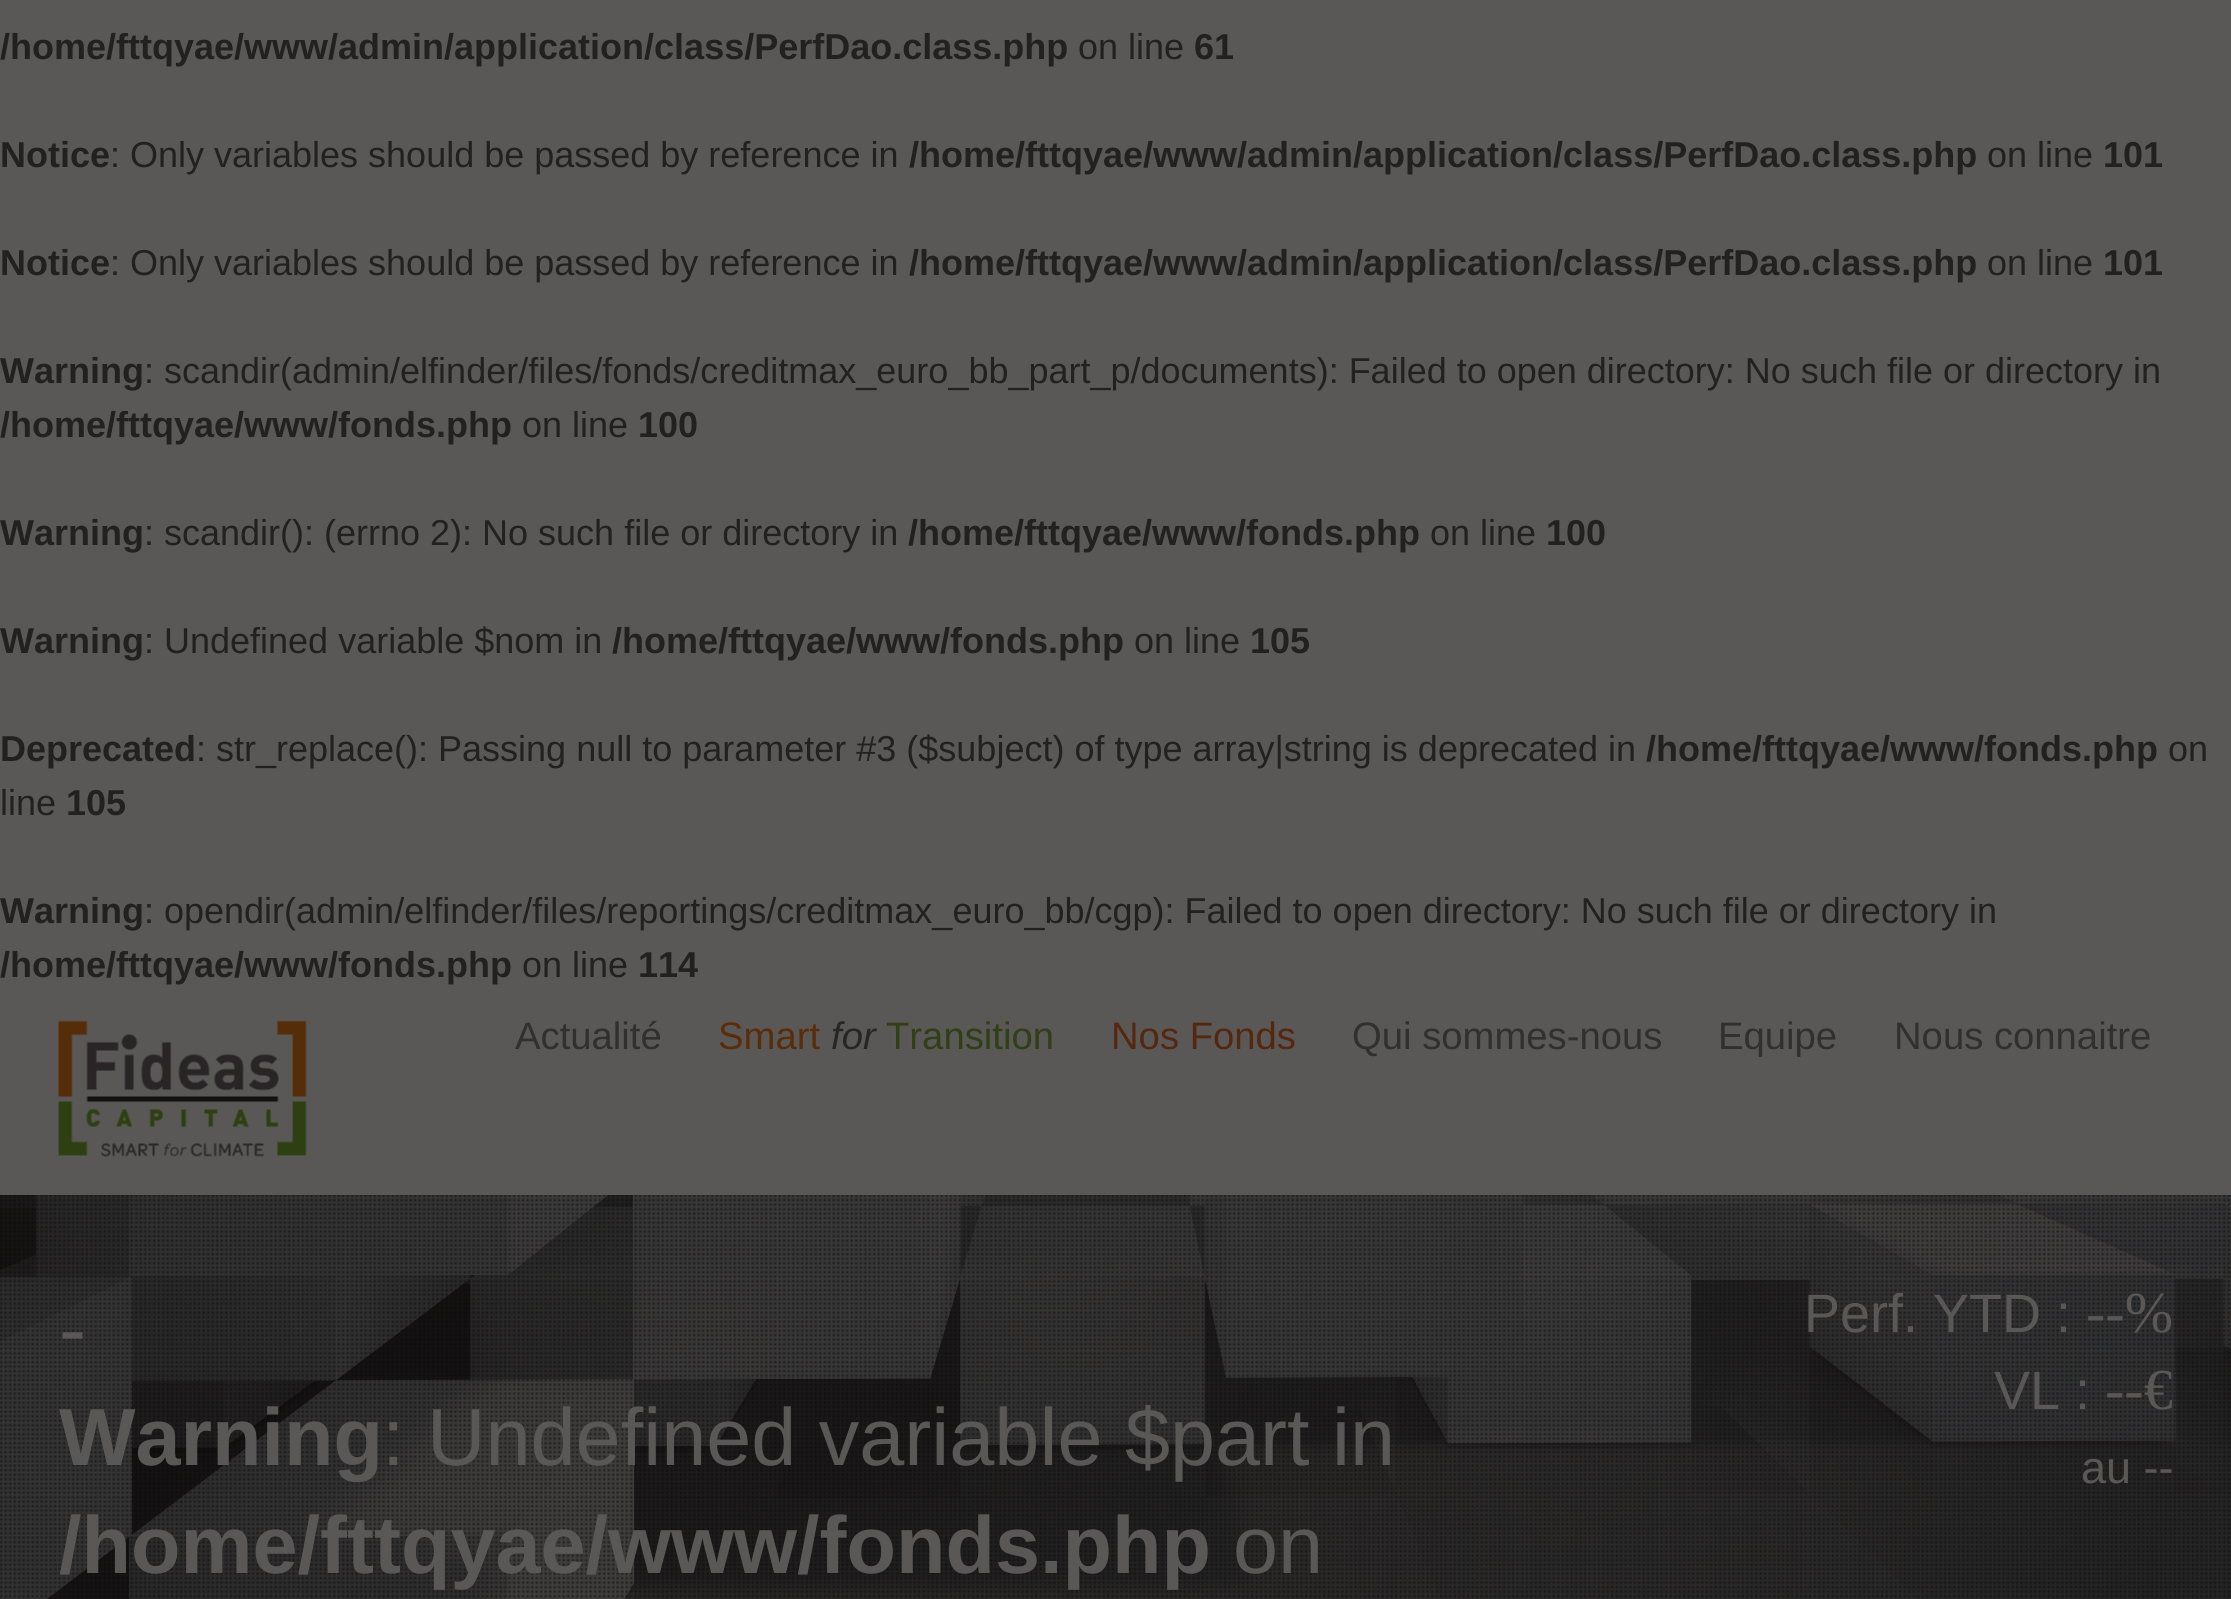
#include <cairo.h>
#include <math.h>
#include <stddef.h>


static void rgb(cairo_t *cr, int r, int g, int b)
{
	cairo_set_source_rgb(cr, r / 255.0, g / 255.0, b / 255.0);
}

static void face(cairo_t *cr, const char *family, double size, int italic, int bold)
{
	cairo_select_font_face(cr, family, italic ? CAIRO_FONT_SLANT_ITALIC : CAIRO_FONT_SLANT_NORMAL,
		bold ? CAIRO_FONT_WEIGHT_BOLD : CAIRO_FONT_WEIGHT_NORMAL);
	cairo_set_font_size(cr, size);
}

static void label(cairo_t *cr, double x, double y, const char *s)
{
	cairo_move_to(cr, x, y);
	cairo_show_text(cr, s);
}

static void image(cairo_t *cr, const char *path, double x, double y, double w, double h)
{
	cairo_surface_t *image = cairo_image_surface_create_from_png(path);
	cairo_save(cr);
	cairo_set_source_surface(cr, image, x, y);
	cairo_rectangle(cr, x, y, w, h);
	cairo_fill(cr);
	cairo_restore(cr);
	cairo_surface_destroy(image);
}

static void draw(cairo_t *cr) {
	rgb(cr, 90, 87, 87);
	cairo_paint(cr);
	face(cr, "Liberation Sans", 36, 0, 1);
	rgb(cr, 35, 32, 32);
	label(cr, 0, 59, "/home/fttqyae/www/admin/application/class/PerfDao.class.php");
	face(cr, "Liberation Sans", 36, 0, 0);
	label(cr, 1078, 59, "on line");
	face(cr, "Liberation Sans", 36, 0, 1);
	label(cr, 1194, 59, "61");
	label(cr, 0, 167, "Notice");
	face(cr, "Liberation Sans", 36, 0, 0);
	label(cr, 110, 167, ": Only variables should be passed by reference in");
	face(cr, "Liberation Sans", 36, 0, 1);
	label(cr, 909, 167, "/home/fttqyae/www/admin/application/class/PerfDao.class.php");
	face(cr, "Liberation Sans", 36, 0, 0);
	label(cr, 1987, 167, "on line");
	face(cr, "Liberation Sans", 36, 0, 1);
	label(cr, 2103, 167, "101");
	label(cr, 0, 275, "Notice");
	face(cr, "Liberation Sans", 36, 0, 0);
	label(cr, 110, 275, ": Only variables should be passed by reference in");
	face(cr, "Liberation Sans", 36, 0, 1);
	label(cr, 909, 275, "/home/fttqyae/www/admin/application/class/PerfDao.class.php");
	face(cr, "Liberation Sans", 36, 0, 0);
	label(cr, 1987, 275, "on line");
	face(cr, "Liberation Sans", 36, 0, 1);
	label(cr, 2103, 275, "101");
	label(cr, 0, 383, "Warning");
	face(cr, "Liberation Sans", 36, 0, 0);
	label(cr, 144, 383, ": scandir(admin/elfinder/files/fonds/creditmax_euro_bb_part_p/documents): Failed to open directory: No such file or directory in");
	face(cr, "Liberation Sans", 36, 0, 1);
	label(cr, 0, 437, "/home/fttqyae/www/fonds.php");
	face(cr, "Liberation Sans", 36, 0, 0);
	label(cr, 522, 437, "on line");
	face(cr, "Liberation Sans", 36, 0, 1);
	label(cr, 638, 437, "100");
	label(cr, 0, 545, "Warning");
	face(cr, "Liberation Sans", 36, 0, 0);
	label(cr, 144, 545, ": scandir(): (errno 2): No such file or directory in");
	face(cr, "Liberation Sans", 36, 0, 1);
	label(cr, 908, 545, "/home/fttqyae/www/fonds.php");
	face(cr, "Liberation Sans", 36, 0, 0);
	label(cr, 1430, 545, "on line");
	face(cr, "Liberation Sans", 36, 0, 1);
	label(cr, 1546, 545, "100");
	label(cr, 0, 653, "Warning");
	face(cr, "Liberation Sans", 36, 0, 0);
	label(cr, 144, 653, ": Undefined variable $nom in");
	face(cr, "Liberation Sans", 36, 0, 1);
	label(cr, 612, 653, "/home/fttqyae/www/fonds.php");
	face(cr, "Liberation Sans", 36, 0, 0);
	label(cr, 1134, 653, "on line");
	face(cr, "Liberation Sans", 36, 0, 1);
	label(cr, 1250, 653, "105");
	label(cr, 0, 761, "Deprecated");
	face(cr, "Liberation Sans", 36, 0, 0);
	label(cr, 196, 761, ": str_replace(): Passing null to parameter #3 ($subject) of type array|string is deprecated in");
	face(cr, "Liberation Sans", 36, 0, 1);
	label(cr, 1646, 761, "/home/fttqyae/www/fonds.php");
	face(cr, "Liberation Sans", 36, 0, 0);
	label(cr, 2168, 761, "on");
	label(cr, 0, 815, "line");
	face(cr, "Liberation Sans", 36, 0, 1);
	label(cr, 66, 815, "105");
	label(cr, 0, 923, "Warning");
	face(cr, "Liberation Sans", 36, 0, 0);
	label(cr, 144, 923, ": opendir(admin/elfinder/files/reportings/creditmax_euro_bb/cgp): Failed to open directory: No such file or directory in");
	face(cr, "Liberation Sans", 36, 0, 1);
	label(cr, 0, 977, "/home/fttqyae/www/fonds.php");
	face(cr, "Liberation Sans", 36, 0, 0);
	label(cr, 522, 977, "on line");
	face(cr, "Liberation Sans", 36, 0, 1);
	label(cr, 638, 977, "114");
	image(cr, "image0.png", 58, 1020, 249, 137);
	face(cr, "Liberation Sans", 38.25, 0, 0);
	rgb(cr, 49, 47, 47);
	label(cr, 515, 1049, "Actualité");
	rgb(cr, 89, 45, 8);
	label(cr, 718, 1049, "Smart");
	face(cr, "Liberation Sans", 38.25, 1, 0);
	rgb(cr, 40, 37, 38);
	label(cr, 831, 1049, "for");
	face(cr, "Liberation Sans", 38.25, 0, 0);
	rgb(cr, 47, 63, 22);
	label(cr, 886, 1049, "Transition");
	rgb(cr, 85, 39, 15);
	label(cr, 1111, 1049, "Nos Fonds");
	rgb(cr, 49, 47, 47);
	label(cr, 1352, 1049, "Qui sommes-nous");
	label(cr, 1718, 1049, "Equipe");
	label(cr, 1894, 1049, "Nous connaitre");
	image(cr, "image1.png", 0, 1195, 2231, 404);
	image(cr, "image2.png", 0, 1195, 2231, 404);
	face(cr, "Liberation Sans", 81, 0, 0);
	rgb(cr, 90, 87, 87);
	label(cr, 59, 1357, "-");
	face(cr, "Liberation Sans", 81, 0, 1);
	label(cr, 59, 1465, "Warning");
	face(cr, "Liberation Sans", 81, 0, 0);
	label(cr, 382, 1465, ": Undefined variable $part in");
	face(cr, "Liberation Sans", 81, 0, 1);
	label(cr, 59, 1573, "/home/fttqyae/www/fonds.php");
	face(cr, "Liberation Sans", 81, 0, 0);
	label(cr, 1233, 1573, "on");
	face(cr, "Liberation Sans", 54, 0, 0);
	label(cr, 1804, 1332, "Perf. YTD :");
	face(cr, "Liberation Serif", 58, 0, 0);
	label(cr, 2086, 1332, "--%");
	face(cr, "Liberation Sans", 54, 0, 0);
	label(cr, 1994, 1409, "VL :");
	face(cr, "Liberation Serif", 58, 0, 0);
	label(cr, 2105, 1409, "--€");
	face(cr, "Liberation Sans", 45, 0, 0);
	label(cr, 2081, 1483, "au --");
}

int main(void) {
	cairo_surface_t *surface = cairo_image_surface_create(CAIRO_FORMAT_RGB24, 2231, 1599);
	cairo_t *cr = cairo_create(surface);
	cairo_font_options_t *options = cairo_font_options_create();
	cairo_font_options_set_hint_metrics(options, CAIRO_HINT_METRICS_OFF);
	cairo_font_options_set_hint_style(options, CAIRO_HINT_STYLE_NONE);
	cairo_set_font_options(cr, options);
	cairo_set_miter_limit(cr, 4);
	draw(cr);
	cairo_surface_write_to_png(surface, "render.png");
	cairo_font_options_destroy(options);
	cairo_destroy(cr);
	cairo_surface_destroy(surface);
	return 0;
}
